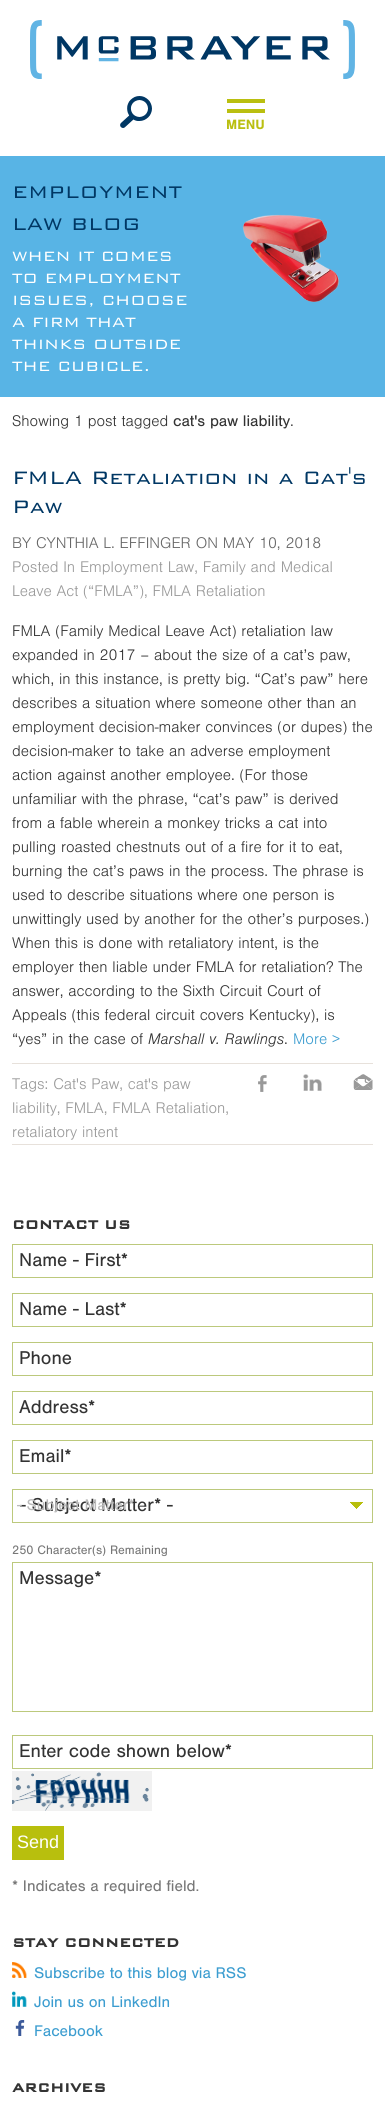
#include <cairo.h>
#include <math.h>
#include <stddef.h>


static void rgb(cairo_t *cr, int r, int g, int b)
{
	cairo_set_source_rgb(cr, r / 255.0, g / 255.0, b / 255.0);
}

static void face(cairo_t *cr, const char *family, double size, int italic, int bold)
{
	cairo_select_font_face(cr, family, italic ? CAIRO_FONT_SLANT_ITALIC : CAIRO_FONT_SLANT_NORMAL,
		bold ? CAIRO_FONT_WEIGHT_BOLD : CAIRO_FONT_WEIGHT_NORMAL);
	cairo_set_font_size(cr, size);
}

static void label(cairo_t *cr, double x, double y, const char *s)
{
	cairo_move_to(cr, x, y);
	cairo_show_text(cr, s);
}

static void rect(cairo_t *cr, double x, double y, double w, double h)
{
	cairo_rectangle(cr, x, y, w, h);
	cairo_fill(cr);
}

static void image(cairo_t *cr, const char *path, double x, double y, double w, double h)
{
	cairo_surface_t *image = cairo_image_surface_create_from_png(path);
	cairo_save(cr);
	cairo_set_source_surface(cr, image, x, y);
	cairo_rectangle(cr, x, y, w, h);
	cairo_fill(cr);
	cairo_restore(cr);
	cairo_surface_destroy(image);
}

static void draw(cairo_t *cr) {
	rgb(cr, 255, 255, 255);
	cairo_paint(cr);
	image(cr, "image0.png", 30, 20, 325, 59);
	image(cr, "image1.png", 120, 96, 32, 32);
	rgb(cr, 186, 191, 16);
	rect(cr, 227, 109, 38, 4);
	rect(cr, 227, 99, 38, 4);
	face(cr, "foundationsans", 14, 0, 1);
	label(cr, 226, 129, "MENU");
	rgb(cr, 88, 180, 229);
	rect(cr, 0, 156, 385, 241);
	face(cr, "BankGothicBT", 22.5, 0, 0);
	rgb(cr, 0, 55, 100);
	label(cr, 12, 198, "EMPLOYMENT");
	label(cr, 12, 230, "LAW BLOG");
	face(cr, "BankGothicBT", 18, 0, 0);
	rgb(cr, 255, 255, 255);
	label(cr, 12, 261, "WHEN IT COMES");
	label(cr, 12, 283, "TO EMPLOYMENT");
	label(cr, 12, 305, "ISSUES, CHOOSE");
	label(cr, 12, 327, "A FIRM THAT");
	label(cr, 12, 349, "THINKS OUTSIDE");
	label(cr, 12, 371, "THE CUBICLE.");
	image(cr, "image2.png", 242, 214, 97, 88);
	face(cr, "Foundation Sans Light", 16, 0, 0);
	rgb(cr, 51, 51, 51);
	label(cr, 12, 426, "Showing 1 post tagged");
	face(cr, "foundationsans", 16, 0, 0);
	label(cr, 173, 426, "cat's paw liability");
	face(cr, "Foundation Sans Light", 16, 0, 0);
	label(cr, 290, 426, ".");
	face(cr, "BankGothicBT", 24, 0, 0);
	rgb(cr, 0, 55, 100);
	label(cr, 12, 484, "FMLA Retaliation in a Cat's");
	label(cr, 12, 513, "Paw");
	face(cr, "Foundation Sans Light", 16, 0, 0);
	rgb(cr, 102, 102, 102);
	label(cr, 12, 548, "BY CYNTHIA L. EFFINGER ON MAY 10, 2018");
	rgb(cr, 153, 153, 153);
	label(cr, 12, 572, "Posted In Employment Law, Family and Medical");
	label(cr, 12, 596, "Leave Act (“FMLA”), FMLA Retaliation");
	rgb(cr, 51, 51, 51);
	label(cr, 12, 636, "FMLA (Family Medical Leave Act) retaliation law");
	label(cr, 12, 660, "expanded in 2017 – about the size of a cat’s paw,");
	label(cr, 12, 684, "which, in this instance, is pretty big. “Cat’s paw” here");
	label(cr, 12, 708, "describes a situation where someone other than an");
	label(cr, 12, 732, "employment decision-maker convinces (or dupes) the");
	label(cr, 12, 756, "decision-maker to take an adverse employment");
	label(cr, 12, 780, "action against another employee. (For those");
	label(cr, 12, 804, "unfamiliar with the phrase, “cat’s paw” is derived");
	label(cr, 12, 828, "from a fable wherein a monkey tricks a cat into");
	label(cr, 12, 852, "pulling roasted chestnuts out of a fire for it to eat,");
	label(cr, 12, 876, "burning the cat’s paws in the process. The phrase is");
	label(cr, 12, 900, "used to describe situations where one person is");
	label(cr, 12, 924, "unwittingly used by another for the other’s purposes.)");
	label(cr, 12, 948, "When this is done with retaliatory intent, is the");
	label(cr, 12, 972, "employer then liable under FMLA for retaliation? The");
	label(cr, 12, 996, "answer, according to the Sixth Circuit Court of");
	label(cr, 12, 1020, "Appeals (this federal circuit covers Kentucky), is");
	label(cr, 12, 1044, "“yes” in the case of");
	face(cr, "Foundation Sans Light", 16, 1, 0);
	label(cr, 148, 1044, "Marshall v. Rawlings");
	face(cr, "Foundation Sans Light", 16, 0, 0);
	label(cr, 284, 1044, ".");
	rgb(cr, 60, 157, 208);
	label(cr, 293, 1044, "More >");
	rgb(cr, 231, 225, 219);
	rect(cr, 12, 1063, 361, 1);
	rect(cr, 12, 1144, 361, 1);
	rgb(cr, 153, 153, 153);
	label(cr, 12, 1089, "Tags: Cat's Paw, cat's paw");
	label(cr, 12, 1113, "liability, FMLA, FMLA Retaliation,");
	label(cr, 12, 1137, "retaliatory intent");
	image(cr, "image3.png", 258, 1075, 9, 17);
	image(cr, "image4.png", 303, 1074, 19, 17);
	image(cr, "image5.png", 353, 1074, 20, 16);
	face(cr, "BankGothicBT", 16, 0, 1);
	rgb(cr, 51, 51, 51);
	label(cr, 12, 1229, "CONTACT US");
	cairo_rectangle(cr, 12.5, 1244.5, 360, 33);
	rgb(cr, 188, 201, 124);
	cairo_set_line_width(cr, 1);
	cairo_stroke(cr);
	face(cr, "foundationsans", 19.25, 0, 0);
	rgb(cr, 51, 51, 51);
	label(cr, 19, 1266, "Name - First*");
	cairo_rectangle(cr, 12.5, 1293.5, 360, 33);
	rgb(cr, 188, 201, 124);
	cairo_stroke(cr);
	rgb(cr, 51, 51, 51);
	label(cr, 19, 1315, "Name - Last*");
	cairo_rectangle(cr, 12.5, 1342.5, 360, 33);
	rgb(cr, 188, 201, 124);
	cairo_stroke(cr);
	rgb(cr, 51, 51, 51);
	label(cr, 19, 1364, "Phone");
	cairo_rectangle(cr, 12.5, 1391.5, 360, 33);
	rgb(cr, 188, 201, 124);
	cairo_stroke(cr);
	rgb(cr, 51, 51, 51);
	label(cr, 19, 1413, "Address*");
	cairo_rectangle(cr, 12.5, 1440.5, 360, 33);
	rgb(cr, 188, 201, 124);
	cairo_stroke(cr);
	rgb(cr, 51, 51, 51);
	label(cr, 19, 1462, "Email*");
	image(cr, "image6.png", 350, 1502, 13, 7);
	cairo_rectangle(cr, 12.5, 1489.5, 360, 33);
	rgb(cr, 188, 201, 124);
	cairo_stroke(cr);
	rgb(cr, 51, 51, 51);
	label(cr, 20, 1511, "- Subject Matter* -");
	face(cr, "foundationsans", 16, 0, 0);
	rgb(cr, 186, 186, 186);
	label(cr, 17, 1510, "- Subject Matter* -");
	face(cr, "foundationsans", 12.75, 0, 0);
	rgb(cr, 119, 119, 119);
	label(cr, 12, 1554, "250 Character(s) Remaining");
	cairo_rectangle(cr, 12.5, 1562.5, 360, 149);
	rgb(cr, 188, 201, 124);
	cairo_stroke(cr);
	face(cr, "foundationsans", 19.25, 0, 0);
	rgb(cr, 51, 51, 51);
	label(cr, 19, 1584, "Message*");
	cairo_rectangle(cr, 12.5, 1735.5, 360, 33);
	rgb(cr, 188, 201, 124);
	cairo_stroke(cr);
	rgb(cr, 51, 51, 51);
	label(cr, 19, 1757, "Enter code shown below*");
	image(cr, "image7.png", 12, 1771, 140, 40);
	rgb(cr, 184, 191, 13);
	rect(cr, 12, 1826, 52, 34);
	face(cr, "Liberation Sans", 18, 0, 0);
	rgb(cr, 255, 255, 255);
	label(cr, 17, 1848, "Send");
	face(cr, "foundationsans", 16, 0, 0);
	rgb(cr, 119, 119, 119);
	label(cr, 12, 1891, "* Indicates a required field.");
	face(cr, "BankGothicBT", 16, 0, 1);
	rgb(cr, 51, 51, 51);
	label(cr, 12, 1947, "STAY CONNECTED");
	image(cr, "image8.png", 12, 1962, 15, 16);
	face(cr, "foundationsans", 16, 0, 0);
	rgb(cr, 60, 157, 208);
	label(cr, 34, 1978, "Subscribe to this blog via RSS");
	image(cr, "image9.png", 12, 1991, 15, 16);
	label(cr, 34, 2007, "Join us on LinkedIn");
	image(cr, "image10.png", 15, 2020, 10, 16);
	label(cr, 34, 2036, "Facebook");
	face(cr, "BankGothicBT", 16, 0, 1);
	rgb(cr, 51, 51, 51);
	label(cr, 12, 2092, "ARCHIVES");
}

int main(void) {
	cairo_surface_t *surface = cairo_image_surface_create(CAIRO_FORMAT_RGB24, 385, 2109);
	cairo_t *cr = cairo_create(surface);
	cairo_font_options_t *options = cairo_font_options_create();
	cairo_font_options_set_hint_metrics(options, CAIRO_HINT_METRICS_OFF);
	cairo_font_options_set_hint_style(options, CAIRO_HINT_STYLE_NONE);
	cairo_set_font_options(cr, options);
	cairo_set_miter_limit(cr, 4);
	draw(cr);
	cairo_surface_write_to_png(surface, "render.png");
	cairo_font_options_destroy(options);
	cairo_destroy(cr);
	cairo_surface_destroy(surface);
	return 0;
}
